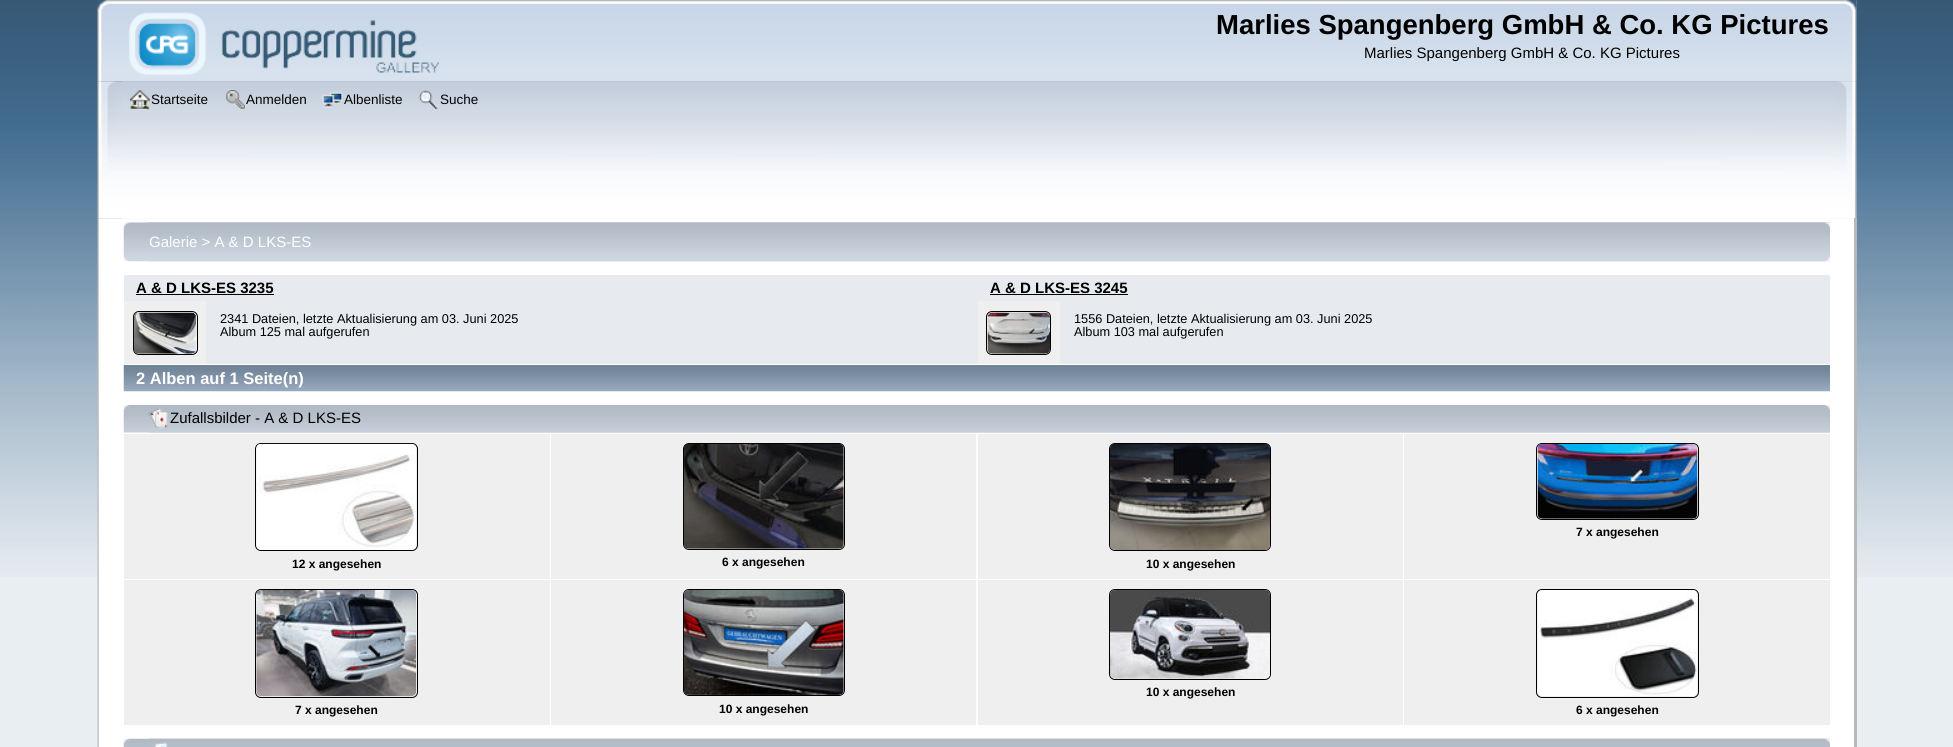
#include <cairo.h>
#include <math.h>
#include <stddef.h>


static void rgb(cairo_t *cr, int r, int g, int b)
{
	cairo_set_source_rgb(cr, r / 255.0, g / 255.0, b / 255.0);
}

static void face(cairo_t *cr, const char *family, double size, int italic, int bold)
{
	cairo_select_font_face(cr, family, italic ? CAIRO_FONT_SLANT_ITALIC : CAIRO_FONT_SLANT_NORMAL,
		bold ? CAIRO_FONT_WEIGHT_BOLD : CAIRO_FONT_WEIGHT_NORMAL);
	cairo_set_font_size(cr, size);
}

static void label(cairo_t *cr, double x, double y, const char *s)
{
	cairo_move_to(cr, x, y);
	cairo_show_text(cr, s);
}

static void rect(cairo_t *cr, double x, double y, double w, double h)
{
	cairo_rectangle(cr, x, y, w, h);
	cairo_fill(cr);
}

static void rrect(cairo_t *cr, double x, double y, double w, double h, double r)
{
	cairo_new_sub_path(cr);
	cairo_arc(cr, x + w - r, y + h - r, r, 0, M_PI / 2);
	cairo_arc(cr, x + r, y + h - r, r, M_PI / 2, M_PI);
	cairo_arc(cr, x + r, y + r, r, M_PI, 1.5 * M_PI);
	cairo_arc(cr, x + w - r, y + r, r, 1.5 * M_PI, 2 * M_PI);
	cairo_close_path(cr);
}

static void image(cairo_t *cr, const char *path, double x, double y, double w, double h)
{
	cairo_surface_t *image = cairo_image_surface_create_from_png(path);
	cairo_save(cr);
	cairo_set_source_surface(cr, image, x, y);
	cairo_rectangle(cr, x, y, w, h);
	cairo_fill(cr);
	cairo_restore(cr);
	cairo_surface_destroy(image);
}

static void draw(cairo_t *cr) {
	rgb(cr, 233, 238, 242);
	cairo_paint(cr);
	image(cr, "image0.png", 0, 0, 1953, 577);
	image(cr, "image1.png", 97, 0, 1760, 82);
	image(cr, "image2.png", 122, 0, 1735, 82);
	image(cr, "image3.png", 128, 12, 311, 63);
	face(cr, "Liberation Sans", 27.5, 0, 1);
	rgb(cr, 0, 0, 0);
	label(cr, 1216, 34, "Marlies Spangenberg GmbH & Co. KG Pictures");
	face(cr, "Liberation Sans", 15, 0, 0);
	label(cr, 1364, 58, "Marlies Spangenberg GmbH & Co. KG Pictures");
	image(cr, "image4.png", 97, 81, 1760, 138);
	image(cr, "image5.png", 122, 81, 1735, 138);
	image(cr, "image6.png", 130, 90, 20, 20);
	face(cr, "Liberation Sans", 13.5, 0, 0);
	label(cr, 151, 104, "Startseite");
	image(cr, "image7.png", 226, 90, 19, 19);
	label(cr, 246, 104, "Anmelden");
	image(cr, "image8.png", 322, 92, 21, 16);
	label(cr, 344, 104, "Albenliste");
	image(cr, "image9.png", 418, 90, 20, 19);
	label(cr, 440, 104, "Suche");
	image(cr, "image10.png", 97, 218, 1757, 529);
	rgb(cr, 183, 183, 183);
	rect(cr, 1854, 218, 3, 529);
	image(cr, "image11.png", 123, 222, 1707, 40);
	image(cr, "image12.png", 148, 222, 1682, 40);
	face(cr, "Liberation Sans", 15, 0, 0);
	rgb(cr, 255, 255, 255);
	label(cr, 149, 247, "Galerie > A & D LKS-ES");
	rgb(cr, 231, 234, 239);
	rect(cr, 124, 275, 1706, 89);
	face(cr, "Liberation Sans", 15, 0, 1);
	rgb(cr, 0, 0, 0);
	label(cr, 136, 293, "A & D LKS-ES 3235");
	rect(cr, 136, 294, 138, 1);
	rgb(cr, 239, 239, 239);
	rect(cr, 124, 301, 82, 63);
	rrect(cr, 133.5, 311.5, 64, 43, 5.5);
	rgb(cr, 0, 0, 0);
	cairo_set_line_width(cr, 1);
	cairo_stroke(cr);
	image(cr, "image13.png", 133, 312, 64, 42);
	face(cr, "Liberation Sans", 12.75, 0, 0);
	label(cr, 220, 323, "2341 Dateien, letzte Aktualisierung am 03. Juni 2025");
	label(cr, 220, 336, "Album 125 mal aufgerufen");
	face(cr, "Liberation Sans", 15, 0, 1);
	label(cr, 990, 293, "A & D LKS-ES 3245");
	rect(cr, 990, 294, 138, 1);
	rgb(cr, 239, 239, 239);
	rect(cr, 978, 301, 82, 63);
	rrect(cr, 986.5, 311.5, 64, 43, 5.5);
	rgb(cr, 0, 0, 0);
	cairo_stroke(cr);
	image(cr, "image14.png", 987, 312, 63, 42);
	face(cr, "Liberation Sans", 12.75, 0, 0);
	label(cr, 1074, 323, "1556 Dateien, letzte Aktualisierung am 03. Juni 2025");
	label(cr, 1074, 336, "Album 103 mal aufgerufen");
	image(cr, "image15.png", 123, 365, 1707, 27);
	face(cr, "Liberation Sans", 16.5, 0, 1);
	rgb(cr, 255, 255, 255);
	label(cr, 136, 384, "2 Alben auf 1 Seite(n)");
	image(cr, "image16.png", 123, 405, 1707, 28);
	image(cr, "image17.png", 149, 405, 1681, 28);
	image(cr, "image18.png", 148, 408, 20, 21);
	face(cr, "Liberation Sans", 15, 0, 0);
	rgb(cr, 0, 0, 0);
	label(cr, 170, 423, "Zufallsbilder - A & D LKS-ES");
	rgb(cr, 239, 239, 239);
	rect(cr, 1404, 434, 426, 145);
	rrect(cr, 1536.5, 443.5, 162, 76, 5.5);
	rgb(cr, 0, 0, 0);
	cairo_stroke(cr);
	image(cr, "image19.png", 1537, 443, 161, 76);
	face(cr, "Liberation Sans", 12, 0, 1);
	label(cr, 1576, 536, "7 x angesehen");
	rgb(cr, 239, 239, 239);
	rect(cr, 124, 434, 426, 145);
	rrect(cr, 255.5, 443.5, 162, 107, 5.5);
	rgb(cr, 0, 0, 0);
	cairo_stroke(cr);
	image(cr, "image20.png", 256, 443, 160, 107);
	label(cr, 292, 568, "12 x angesehen");
	rgb(cr, 239, 239, 239);
	rect(cr, 551, 434, 425, 145);
	rrect(cr, 683.5, 443.5, 161, 106, 5.5);
	rgb(cr, 0, 0, 0);
	cairo_stroke(cr);
	image(cr, "image21.png", 683, 443, 161, 106);
	label(cr, 722, 566, "6 x angesehen");
	rgb(cr, 239, 239, 239);
	rect(cr, 978, 434, 425, 145);
	rrect(cr, 1109.5, 443.5, 161, 107, 5.5);
	rgb(cr, 0, 0, 0);
	cairo_stroke(cr);
	image(cr, "image22.png", 1110, 444, 160, 106);
	label(cr, 1146, 568, "10 x angesehen");
	rgb(cr, 239, 239, 239);
	rect(cr, 978, 580, 425, 145);
	rrect(cr, 1109.5, 589.5, 161, 90, 5.5);
	rgb(cr, 0, 0, 0);
	cairo_stroke(cr);
	image(cr, "image23.png", 1110, 590, 160, 89);
	label(cr, 1146, 696, "10 x angesehen");
	rgb(cr, 239, 239, 239);
	rect(cr, 124, 580, 426, 145);
	rrect(cr, 255.5, 589.5, 162, 108, 5.5);
	rgb(cr, 0, 0, 0);
	cairo_stroke(cr);
	image(cr, "image24.png", 256, 590, 161, 107);
	label(cr, 295, 714, "7 x angesehen");
	rgb(cr, 239, 239, 239);
	rect(cr, 551, 580, 425, 145);
	rrect(cr, 683.5, 589.5, 161, 106, 5.5);
	rgb(cr, 0, 0, 0);
	cairo_stroke(cr);
	image(cr, "image25.png", 683, 590, 161, 105);
	label(cr, 719, 713, "10 x angesehen");
	rgb(cr, 239, 239, 239);
	rect(cr, 1404, 580, 426, 145);
	rrect(cr, 1536.5, 589.5, 162, 108, 5.5);
	rgb(cr, 0, 0, 0);
	cairo_stroke(cr);
	image(cr, "image26.png", 1537, 590, 161, 106);
	label(cr, 1576, 714, "6 x angesehen");
	image(cr, "image27.png", 123, 738, 1707, 9);
	image(cr, "image28.png", 149, 738, 1681, 6);
	image(cr, "image29.png", 155, 742, 13, 5);
}

int main(void) {
	cairo_surface_t *surface = cairo_image_surface_create(CAIRO_FORMAT_RGB24, 1953, 747);
	cairo_t *cr = cairo_create(surface);
	cairo_font_options_t *options = cairo_font_options_create();
	cairo_font_options_set_hint_metrics(options, CAIRO_HINT_METRICS_OFF);
	cairo_font_options_set_hint_style(options, CAIRO_HINT_STYLE_NONE);
	cairo_set_font_options(cr, options);
	cairo_set_miter_limit(cr, 4);
	draw(cr);
	cairo_surface_write_to_png(surface, "render.png");
	cairo_font_options_destroy(options);
	cairo_destroy(cr);
	cairo_surface_destroy(surface);
	return 0;
}
